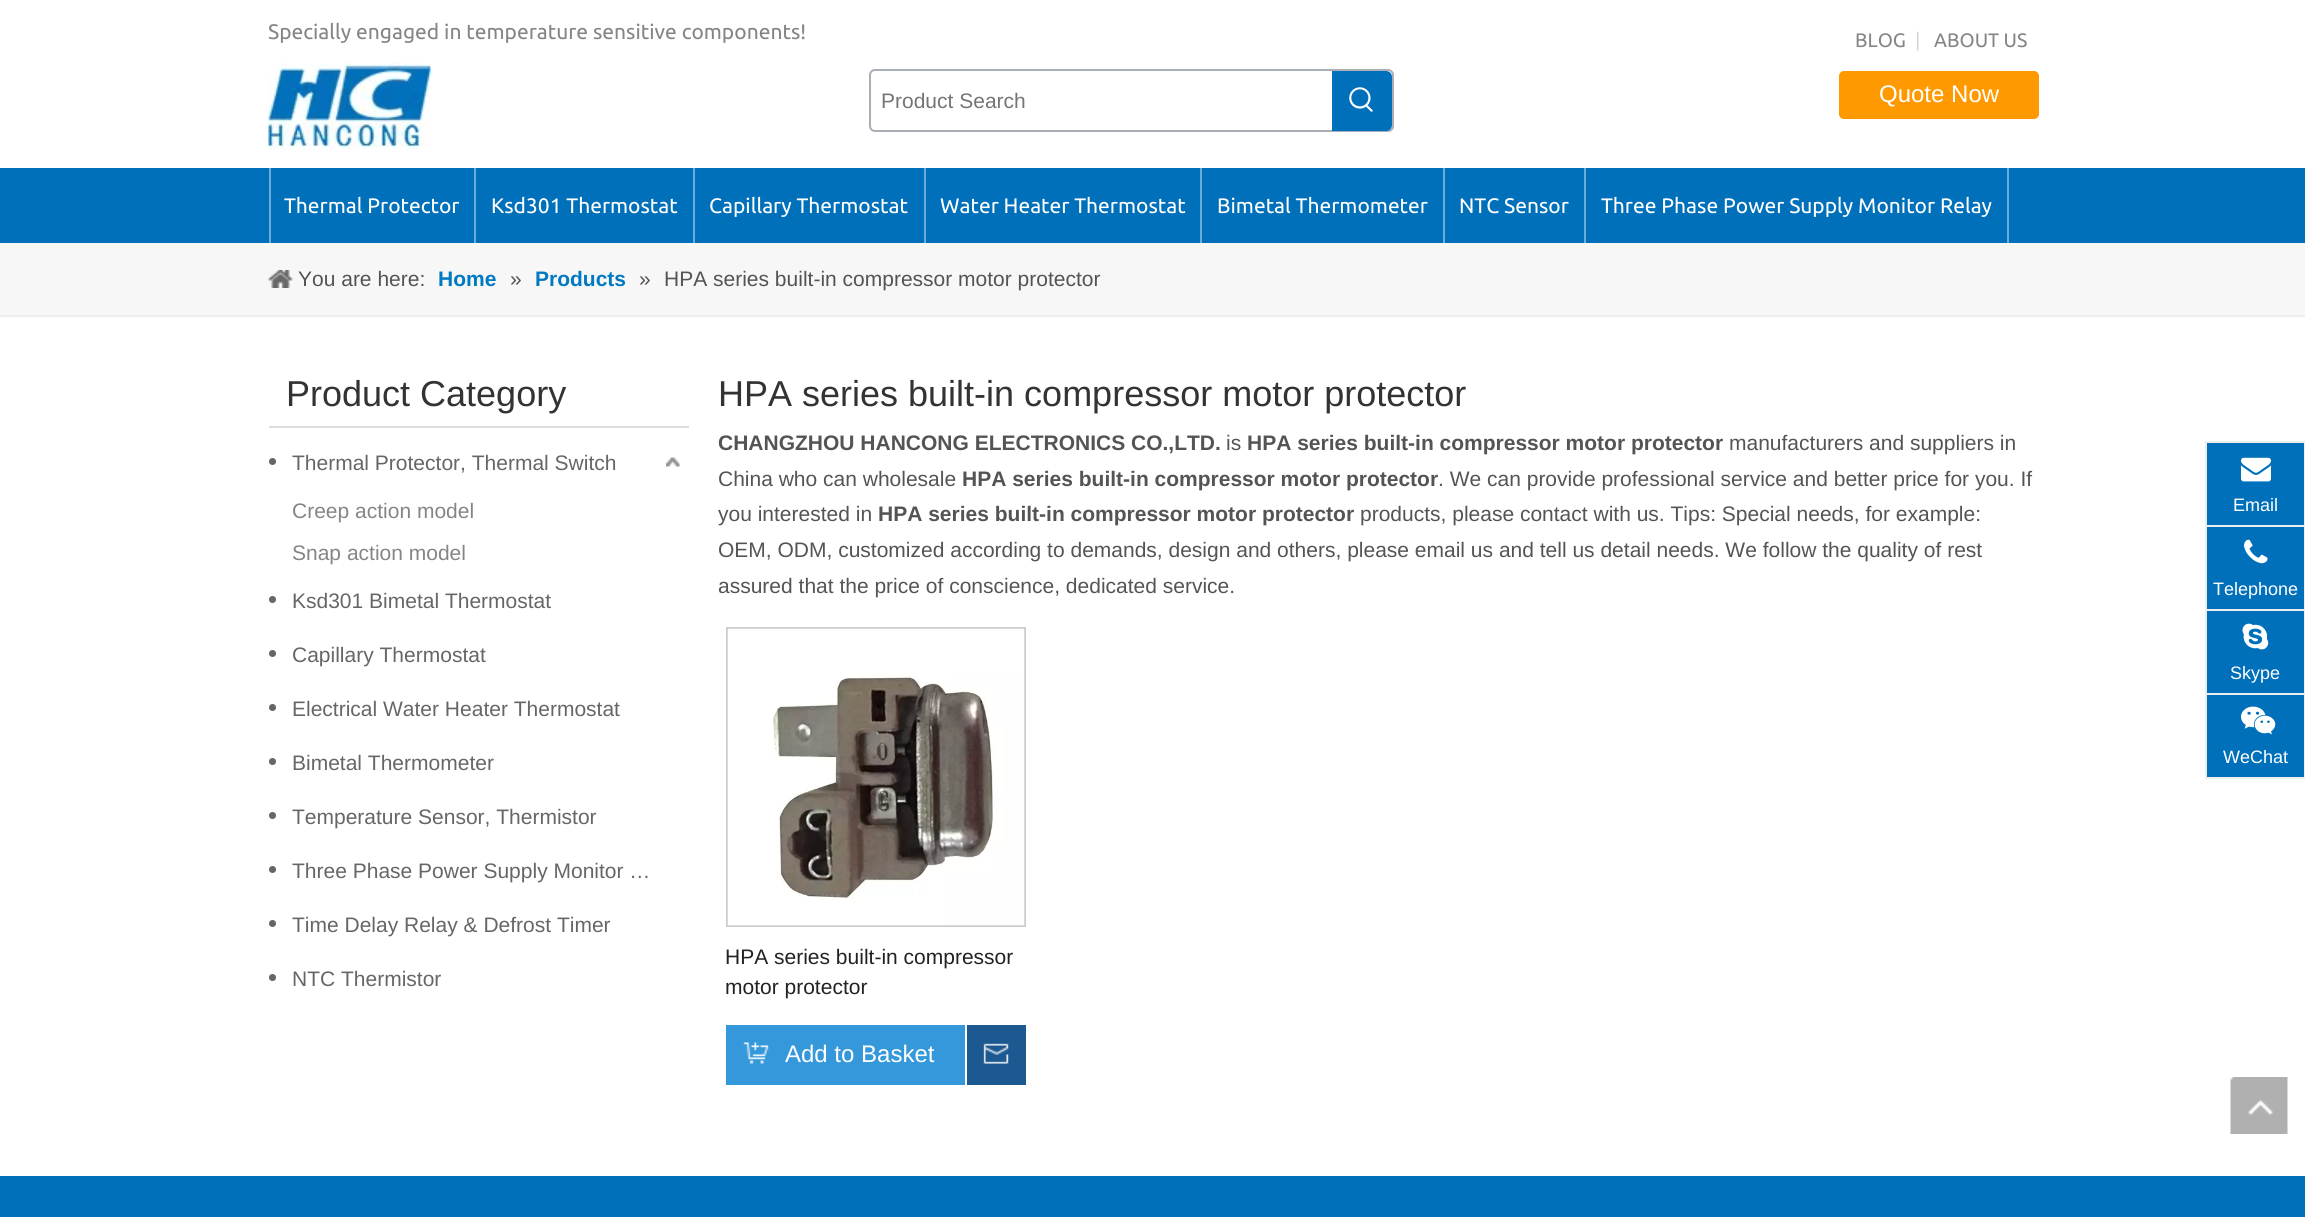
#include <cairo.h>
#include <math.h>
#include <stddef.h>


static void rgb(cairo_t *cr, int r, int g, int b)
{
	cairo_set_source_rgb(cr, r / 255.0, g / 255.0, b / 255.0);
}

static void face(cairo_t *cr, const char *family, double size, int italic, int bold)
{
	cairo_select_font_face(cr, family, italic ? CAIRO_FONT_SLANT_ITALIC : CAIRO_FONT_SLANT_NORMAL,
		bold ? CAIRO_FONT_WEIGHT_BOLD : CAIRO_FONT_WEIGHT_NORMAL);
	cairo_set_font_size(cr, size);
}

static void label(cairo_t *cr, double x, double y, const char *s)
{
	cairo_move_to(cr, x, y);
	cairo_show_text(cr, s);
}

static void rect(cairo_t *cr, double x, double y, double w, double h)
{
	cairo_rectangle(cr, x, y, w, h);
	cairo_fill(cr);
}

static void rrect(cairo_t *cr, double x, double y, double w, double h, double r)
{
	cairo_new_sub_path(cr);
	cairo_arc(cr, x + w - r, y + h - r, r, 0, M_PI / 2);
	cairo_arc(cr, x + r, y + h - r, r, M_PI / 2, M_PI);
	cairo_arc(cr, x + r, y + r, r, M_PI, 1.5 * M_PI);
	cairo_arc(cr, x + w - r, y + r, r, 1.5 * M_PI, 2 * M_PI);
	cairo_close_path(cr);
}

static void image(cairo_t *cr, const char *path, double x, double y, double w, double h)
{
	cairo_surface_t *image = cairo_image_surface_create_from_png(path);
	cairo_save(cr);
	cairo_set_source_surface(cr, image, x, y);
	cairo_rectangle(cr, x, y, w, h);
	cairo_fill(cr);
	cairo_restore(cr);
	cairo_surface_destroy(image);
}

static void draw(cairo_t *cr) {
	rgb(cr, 255, 255, 255);
	cairo_paint(cr);
	face(cr, "Ubuntu", 21, 0, 0);
	rgb(cr, 134, 133, 133);
	label(cr, 268, 39, "Specially engaged in temperature sensitive components!");
	image(cr, "image0.png", 268, 63, 163, 89);
	rrect(cr, 870, 70, 523, 61, 5);
	rgb(cr, 169, 175, 183);
	cairo_stroke(cr);
	face(cr, "Liberation Sans", 21, 0, 0);
	rgb(cr, 117, 117, 117);
	label(cr, 881, 108, "Product Search");
	rgb(cr, 0, 112, 187);
	cairo_new_path(cr);
	cairo_move_to(cr, 1332, 71);
	cairo_line_to(cr, 1386, 71);
	cairo_curve_to(cr, 1389.5, 71, 1392, 73.5, 1392, 77);
	cairo_line_to(cr, 1392, 125);
	cairo_curve_to(cr, 1392, 128.5, 1389.5, 131, 1386, 131);
	cairo_line_to(cr, 1332, 131);
	cairo_close_path(cr);
	cairo_fill(cr);
	image(cr, "image1.png", 1349, 87, 24, 25);
	face(cr, "Ubuntu", 19.5, 0, 0);
	rgb(cr, 134, 133, 133);
	label(cr, 1855, 47, "BLOG");
	rgb(cr, 215, 215, 215);
	label(cr, 1915, 47, "|");
	rgb(cr, 134, 133, 133);
	label(cr, 1934, 47, "ABOUT US");
	rgb(cr, 255, 153, 0);
	rrect(cr, 1840, 72, 198, 46, 4);
	cairo_fill_preserve(cr);
	cairo_stroke(cr);
	face(cr, "Liberation Sans", 24, 0, 0);
	rgb(cr, 255, 255, 255);
	label(cr, 1879, 102, "Quote Now");
	rgb(cr, 0, 112, 187);
	rect(cr, 0, 168, 2305, 75);
	rgb(cr, 107, 173, 214);
	rect(cr, 269, 168, 2, 75);
	rect(cr, 474, 168, 2, 75);
	face(cr, "Ubuntu", 21, 0, 0);
	rgb(cr, 255, 255, 255);
	label(cr, 284, 213, "Thermal Protector");
	rgb(cr, 107, 173, 214);
	rect(cr, 693, 168, 2, 75);
	rgb(cr, 255, 255, 255);
	label(cr, 491, 213, "Ksd301 Thermostat");
	rgb(cr, 107, 173, 214);
	rect(cr, 924, 168, 2, 75);
	rgb(cr, 255, 255, 255);
	label(cr, 709, 213, "Capillary Thermostat");
	rgb(cr, 107, 173, 214);
	rect(cr, 1200, 168, 2, 75);
	rgb(cr, 255, 255, 255);
	label(cr, 940, 213, "Water Heater Thermostat");
	rgb(cr, 107, 173, 214);
	rect(cr, 1443, 168, 2, 75);
	rgb(cr, 255, 255, 255);
	label(cr, 1217, 213, "Bimetal Thermometer");
	rgb(cr, 107, 173, 214);
	rect(cr, 1584, 168, 2, 75);
	rgb(cr, 255, 255, 255);
	label(cr, 1459, 213, "NTC Sensor");
	rgb(cr, 107, 173, 214);
	rect(cr, 2007, 168, 2, 75);
	rgb(cr, 255, 255, 255);
	label(cr, 1601, 213, "Three Phase Power Supply Monitor Relay");
	rgb(cr, 247, 247, 247);
	rect(cr, 0, 243, 2305, 72);
	rgb(cr, 238, 238, 238);
	rect(cr, 0, 315, 2305, 2);
	image(cr, "image2.png", 268, 270, 25, 18);
	face(cr, "Liberation Sans", 21, 0, 0);
	rgb(cr, 84, 84, 84);
	label(cr, 298, 286, "You are here:");
	face(cr, "Liberation Sans", 21, 0, 1);
	rgb(cr, 0, 121, 195);
	label(cr, 438, 286, "Home");
	face(cr, "Liberation Sans", 21, 0, 0);
	rgb(cr, 84, 84, 84);
	label(cr, 510, 286, "»");
	face(cr, "Liberation Sans", 21, 0, 1);
	rgb(cr, 0, 121, 195);
	label(cr, 535, 286, "Products");
	face(cr, "Liberation Sans", 21, 0, 0);
	rgb(cr, 84, 84, 84);
	label(cr, 639, 286, "»");
	label(cr, 664, 286, "HPA series built-in compressor motor protector");
	rgb(cr, 221, 221, 221);
	rect(cr, 269, 426, 420, 2);
	face(cr, "Liberation Sans", 36, 0, 0);
	rgb(cr, 51, 51, 51);
	label(cr, 286, 406, "Product Category");
	rgb(cr, 102, 102, 102);
	cairo_new_path(cr);
	cairo_arc(cr, 272.5, 461.5, 3.5, 0, 2 * M_PI);
	cairo_fill(cr);
	face(cr, "Liberation Sans", 21, 0, 0);
	label(cr, 292, 470, "Thermal Protector, Thermal Switch");
	image(cr, "image3.png", 666, 457, 14, 10);
	cairo_save(cr);
	cairo_rectangle(cr, 293, 489, 396, 42);
	cairo_clip(cr);
	rgb(cr, 134, 133, 133);
	label(cr, 292, 518, "Creep action model");
	cairo_restore(cr);
	rgb(cr, 134, 133, 133);
	label(cr, 292, 560, "Snap action model");
	rgb(cr, 102, 102, 102);
	cairo_new_path(cr);
	cairo_arc(cr, 272.5, 599.5, 3.5, 0, 2 * M_PI);
	cairo_fill(cr);
	label(cr, 292, 608, "Ksd301 Bimetal Thermostat");
	cairo_new_path(cr);
	cairo_arc(cr, 272.5, 653.5, 3.5, 0, 2 * M_PI);
	cairo_fill(cr);
	label(cr, 292, 662, "Capillary Thermostat");
	cairo_new_path(cr);
	cairo_arc(cr, 272.5, 707.5, 3.5, 0, 2 * M_PI);
	cairo_fill(cr);
	label(cr, 292, 716, "Electrical Water Heater Thermostat");
	cairo_new_path(cr);
	cairo_arc(cr, 272.5, 761.5, 3.5, 0, 2 * M_PI);
	cairo_fill(cr);
	label(cr, 292, 770, "Bimetal Thermometer");
	cairo_new_path(cr);
	cairo_arc(cr, 272.5, 815.5, 3.5, 0, 2 * M_PI);
	cairo_fill(cr);
	label(cr, 292, 824, "Temperature Sensor, Thermistor");
	cairo_new_path(cr);
	cairo_arc(cr, 272.5, 869.5, 3.5, 0, 2 * M_PI);
	cairo_fill(cr);
	label(cr, 292, 878, "Three Phase Power Supply Monitor …");
	cairo_new_path(cr);
	cairo_arc(cr, 272.5, 923.5, 3.5, 0, 2 * M_PI);
	cairo_fill(cr);
	label(cr, 292, 932, "Time Delay Relay & Defrost Timer");
	cairo_new_path(cr);
	cairo_arc(cr, 272.5, 977.5, 3.5, 0, 2 * M_PI);
	cairo_fill(cr);
	label(cr, 292, 986, "NTC Thermistor");
	face(cr, "Liberation Sans", 36, 0, 0);
	rgb(cr, 51, 51, 51);
	label(cr, 718, 406, "HPA series built-in compressor motor protector");
	face(cr, "Liberation Sans", 21, 0, 1);
	rgb(cr, 84, 84, 84);
	label(cr, 718, 450, "CHANGZHOU HANCONG ELECTRONICS CO.,LTD.");
	face(cr, "Liberation Sans", 21, 0, 0);
	label(cr, 1226, 450, "is");
	face(cr, "Liberation Sans", 21, 0, 1);
	label(cr, 1247, 450, "HPA series built-in compressor motor protector");
	face(cr, "Liberation Sans", 21, 0, 0);
	label(cr, 1729, 450, "manufacturers and suppliers in");
	label(cr, 718, 486, "China who can wholesale");
	face(cr, "Liberation Sans", 21, 0, 1);
	label(cr, 962, 486, "HPA series built-in compressor motor protector");
	face(cr, "Liberation Sans", 21, 0, 0);
	label(cr, 1438, 486, ". We can provide professional service and better price for you. If");
	label(cr, 718, 521, "you interested in");
	face(cr, "Liberation Sans", 21, 0, 1);
	label(cr, 878, 521, "HPA series built-in compressor motor protector");
	face(cr, "Liberation Sans", 21, 0, 0);
	label(cr, 1360, 521, "products, please contact with us. Tips: Special needs, for example:");
	label(cr, 718, 557, "OEM, ODM, customized according to demands, design and others, please email us and tell us detail needs. We follow the quality of rest");
	label(cr, 718, 593, "assured that the price of conscience, dedicated service.");
	cairo_rectangle(cr, 727, 628, 298, 298);
	rgb(cr, 204, 204, 204);
	cairo_stroke(cr);
	image(cr, "image4.png", 727, 628, 298, 298);
	rgb(cr, 34, 34, 34);
	label(cr, 725, 964, "HPA series built-in compressor");
	label(cr, 725, 994, "motor protector");
	rgb(cr, 52, 152, 219);
	rect(cr, 726, 1025, 239, 60);
	image(cr, "image5.png", 743, 1042, 26, 22);
	face(cr, "Liberation Sans", 24, 0, 0);
	rgb(cr, 255, 255, 255);
	label(cr, 785, 1062, "Add to Basket");
	rgb(cr, 29, 89, 145);
	rect(cr, 967, 1025, 59, 60);
	image(cr, "image6.png", 983, 1043, 26, 21);
	rgb(cr, 0, 112, 187);
	rect(cr, 2207, 443, 97, 82);
	rgb(cr, 238, 238, 238);
	rect(cr, 2205, 441, 100, 2);
	rect(cr, 2304, 441, 1, 84);
	rect(cr, 2205, 441, 2, 84);
	image(cr, "image7.png", 2241, 457, 30, 25);
	face(cr, "Liberation Sans", 18, 0, 0);
	rgb(cr, 255, 255, 255);
	label(cr, 2233, 511, "Email");
	rgb(cr, 0, 112, 187);
	rect(cr, 2207, 527, 97, 82);
	rgb(cr, 238, 238, 238);
	rect(cr, 2205, 525, 100, 2);
	rect(cr, 2304, 525, 1, 84);
	rect(cr, 2205, 525, 2, 84);
	image(cr, "image8.png", 2244, 539, 24, 25);
	rgb(cr, 255, 255, 255);
	label(cr, 2213, 595, "Telephone");
	rgb(cr, 0, 112, 187);
	rect(cr, 2207, 611, 97, 82);
	rgb(cr, 238, 238, 238);
	rect(cr, 2205, 609, 100, 2);
	rect(cr, 2304, 609, 1, 84);
	rect(cr, 2205, 609, 2, 84);
	image(cr, "image9.png", 2242, 623, 27, 27);
	rgb(cr, 255, 255, 255);
	label(cr, 2230, 679, "Skype");
	rgb(cr, 0, 112, 187);
	cairo_rectangle(cr, 2206, 694, 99, 84);
	cairo_fill_preserve(cr);
	rgb(cr, 238, 238, 238);
	cairo_stroke(cr);
	image(cr, "image10.png", 2241, 706, 35, 29);
	rgb(cr, 255, 255, 255);
	label(cr, 2223, 763, "WeChat");
	rgb(cr, 0, 112, 187);
	rect(cr, 0, 1176, 2305, 41);
	image(cr, "image11.png", 2230, 1077, 58, 57);
}

int main(void) {
	cairo_surface_t *surface = cairo_image_surface_create(CAIRO_FORMAT_RGB24, 2305, 1217);
	cairo_t *cr = cairo_create(surface);
	cairo_font_options_t *options = cairo_font_options_create();
	cairo_font_options_set_hint_metrics(options, CAIRO_HINT_METRICS_OFF);
	cairo_font_options_set_hint_style(options, CAIRO_HINT_STYLE_NONE);
	cairo_set_font_options(cr, options);
	cairo_set_miter_limit(cr, 4);
	draw(cr);
	cairo_surface_write_to_png(surface, "render.png");
	cairo_font_options_destroy(options);
	cairo_destroy(cr);
	cairo_surface_destroy(surface);
	return 0;
}
